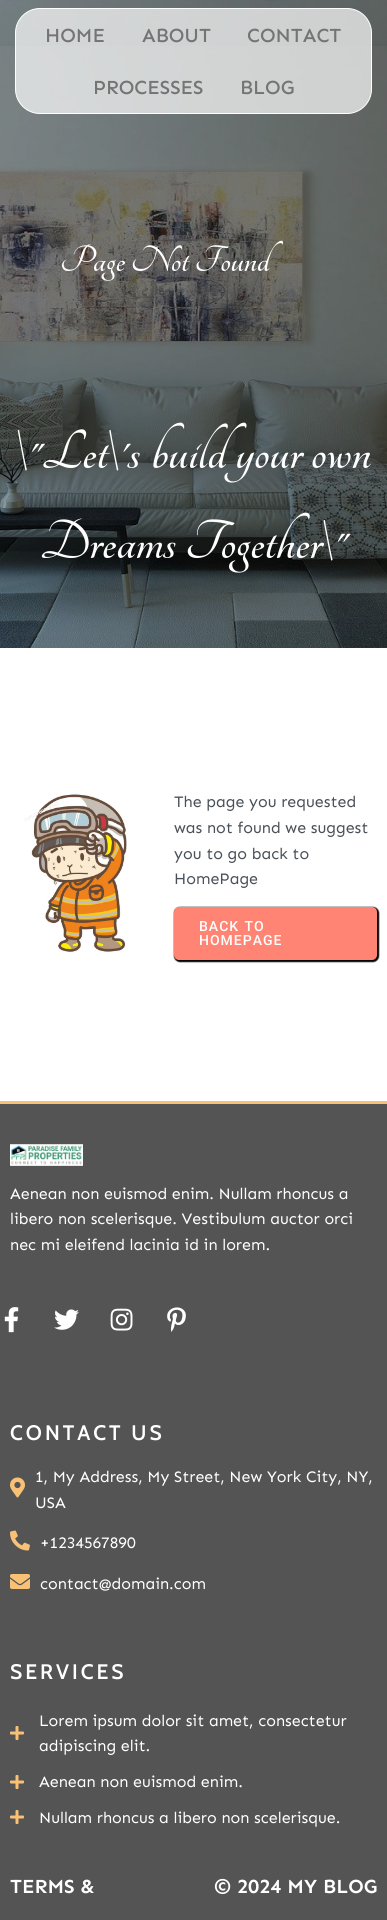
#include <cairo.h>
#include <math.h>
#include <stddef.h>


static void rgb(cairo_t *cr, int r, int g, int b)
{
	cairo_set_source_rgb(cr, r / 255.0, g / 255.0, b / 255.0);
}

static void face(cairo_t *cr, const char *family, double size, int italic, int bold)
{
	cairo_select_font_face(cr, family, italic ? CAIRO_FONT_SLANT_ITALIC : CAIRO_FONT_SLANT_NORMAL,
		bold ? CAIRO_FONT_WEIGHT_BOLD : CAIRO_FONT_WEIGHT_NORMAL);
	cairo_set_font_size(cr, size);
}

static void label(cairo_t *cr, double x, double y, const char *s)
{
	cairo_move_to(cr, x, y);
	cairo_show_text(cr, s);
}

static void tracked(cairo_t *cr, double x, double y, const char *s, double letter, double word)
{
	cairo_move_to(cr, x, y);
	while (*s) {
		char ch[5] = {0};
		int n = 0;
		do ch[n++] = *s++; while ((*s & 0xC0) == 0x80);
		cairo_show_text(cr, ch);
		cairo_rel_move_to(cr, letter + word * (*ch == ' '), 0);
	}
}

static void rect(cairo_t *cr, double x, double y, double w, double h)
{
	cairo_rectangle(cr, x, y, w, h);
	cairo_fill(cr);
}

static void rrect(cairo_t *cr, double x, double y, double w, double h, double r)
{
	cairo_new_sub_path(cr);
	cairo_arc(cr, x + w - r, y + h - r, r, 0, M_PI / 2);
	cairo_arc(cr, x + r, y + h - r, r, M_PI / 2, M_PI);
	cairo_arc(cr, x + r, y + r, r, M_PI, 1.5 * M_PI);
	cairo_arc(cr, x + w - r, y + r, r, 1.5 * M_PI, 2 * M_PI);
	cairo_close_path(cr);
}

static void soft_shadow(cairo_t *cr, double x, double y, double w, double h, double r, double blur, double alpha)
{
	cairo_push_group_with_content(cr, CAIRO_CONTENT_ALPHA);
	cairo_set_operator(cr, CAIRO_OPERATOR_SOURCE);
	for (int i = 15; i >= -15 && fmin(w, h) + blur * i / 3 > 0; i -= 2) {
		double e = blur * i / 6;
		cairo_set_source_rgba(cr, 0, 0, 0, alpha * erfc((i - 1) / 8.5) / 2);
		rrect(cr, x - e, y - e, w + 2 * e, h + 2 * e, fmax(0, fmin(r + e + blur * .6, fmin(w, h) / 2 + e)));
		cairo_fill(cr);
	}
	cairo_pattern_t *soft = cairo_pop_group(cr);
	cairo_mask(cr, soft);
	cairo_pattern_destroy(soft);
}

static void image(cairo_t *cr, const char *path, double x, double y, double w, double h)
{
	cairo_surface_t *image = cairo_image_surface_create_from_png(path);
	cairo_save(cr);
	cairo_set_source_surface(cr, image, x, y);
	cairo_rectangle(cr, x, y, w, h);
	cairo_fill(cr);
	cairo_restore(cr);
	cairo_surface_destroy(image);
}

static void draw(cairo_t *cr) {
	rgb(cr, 255, 255, 255);
	cairo_paint(cr);
	image(cr, "image0.png", 0, 0, 387, 648);
	cairo_set_source_rgba(cr, 1, 1, 1, 0.7);
	rrect(cr, 15.5, 8.5, 356, 105, 24.5);
	cairo_fill_preserve(cr);
	rgb(cr, 255, 255, 255);
	cairo_set_line_width(cr, 1);
	cairo_stroke(cr);
	face(cr, "Sen Medium", 20, 0, 0);
	rgb(cr, 116, 116, 116);
	label(cr, 45, 42, "HOME");
	label(cr, 142, 42, "ABOUT");
	label(cr, 247, 42, "CONTACT");
	label(cr, 93, 94, "PROCESSES");
	label(cr, 240, 94, "BLOG");
	face(cr, "Tangerine", 40, 0, 1);
	rgb(cr, 255, 255, 255);
	label(cr, 60, 271, "Page Not Found");
	face(cr, "Tangerine", 60, 0, 1);
	label(cr, 16, 468, "\\\"Let\\'s build your own");
	label(cr, 40, 558, "Dreams Together\\\"");
	image(cr, "image1.png", 24, 793, 103, 159);
	face(cr, "Sen", 16, 0, 0);
	rgb(cr, 73, 80, 87);
	label(cr, 174, 807, "The page you requested");
	label(cr, 174, 833, "was not found we suggest");
	label(cr, 174, 859, "you to go back to");
	label(cr, 174, 884, "HomePage");
	rgb(cr, 0, 0, 0);
	soft_shadow(cr, 174, 907, 205, 55, 6, 0.5, 1);
	rgb(cr, 255, 132, 116);
	rrect(cr, 174, 907, 203, 53, 5);
	cairo_fill(cr);
	face(cr, "Roboto Medium", 14, 0, 0);
	rgb(cr, 255, 255, 255);
	tracked(cr, 199, 931, "BACK TO", 1, 1);
	tracked(cr, 199, 945, "HOMEPAGE", 1, 0);
	rgb(cr, 84, 84, 84);
	rect(cr, 0, 1104, 387, 816);
	rgb(cr, 248, 193, 118);
	rect(cr, 0, 1101, 387, 3);
	image(cr, "image2.png", 10, 1144, 73, 22);
	face(cr, "Sen", 16, 0, 0);
	rgb(cr, 255, 255, 255);
	label(cr, 10, 1199, "Aenean non euismod enim. Nullam rhoncus a");
	label(cr, 10, 1224, "libero non scelerisque. Vestibulum auctor orci");
	label(cr, 10, 1250, "nec mi eleifend lacinia id in lorem.");
	image(cr, "image3.png", 4, 1307, 15, 26);
	image(cr, "image4.png", 54, 1309, 25, 21);
	image(cr, "image5.png", 110, 1308, 23, 23);
	image(cr, "image6.png", 167, 1307, 19, 25);
	face(cr, "Cabin SemiBold", 21, 0, 0);
	tracked(cr, 10, 1440, "CONTACT US", 3, 0);
	image(cr, "image7.png", 10, 1477, 15, 21);
	face(cr, "Sen", 16, 0, 0);
	label(cr, 35, 1482, "1, My Address, My Street, New York City, NY,");
	label(cr, 35, 1508, "USA");
	image(cr, "image8.png", 10, 1530, 20, 21);
	label(cr, 40, 1548, "+1234567890");
	image(cr, "image9.png", 10, 1574, 20, 15);
	label(cr, 40, 1589, "contact@domain.com");
	face(cr, "Cabin SemiBold", 21, 0, 0);
	tracked(cr, 10, 1679, "SERVICES", 3, 0);
	image(cr, "image10.png", 10, 1726, 14, 14);
	face(cr, "Sen", 16, 0, 0);
	label(cr, 39, 1726, "Lorem ipsum dolor sit amet, consectetur");
	label(cr, 39, 1751, "adipiscing elit.");
	image(cr, "image10.png", 10, 1775, 14, 14);
	label(cr, 39, 1787, "Aenean non euismod enim.");
	image(cr, "image10.png", 10, 1810, 14, 14);
	label(cr, 39, 1823, "Nullam rhoncus a libero non scelerisque.");
	face(cr, "Sen SemiBold", 20, 0, 0);
	label(cr, 10, 1893, "TERMS &");
	label(cr, 214, 1893, "© 2024 MY BLOG");
}

int main(void) {
	cairo_surface_t *surface = cairo_image_surface_create(CAIRO_FORMAT_RGB24, 387, 1920);
	cairo_t *cr = cairo_create(surface);
	cairo_font_options_t *options = cairo_font_options_create();
	cairo_font_options_set_hint_metrics(options, CAIRO_HINT_METRICS_OFF);
	cairo_font_options_set_hint_style(options, CAIRO_HINT_STYLE_NONE);
	cairo_set_font_options(cr, options);
	cairo_set_miter_limit(cr, 4);
	draw(cr);
	cairo_surface_write_to_png(surface, "render.png");
	cairo_font_options_destroy(options);
	cairo_destroy(cr);
	cairo_surface_destroy(surface);
	return 0;
}
